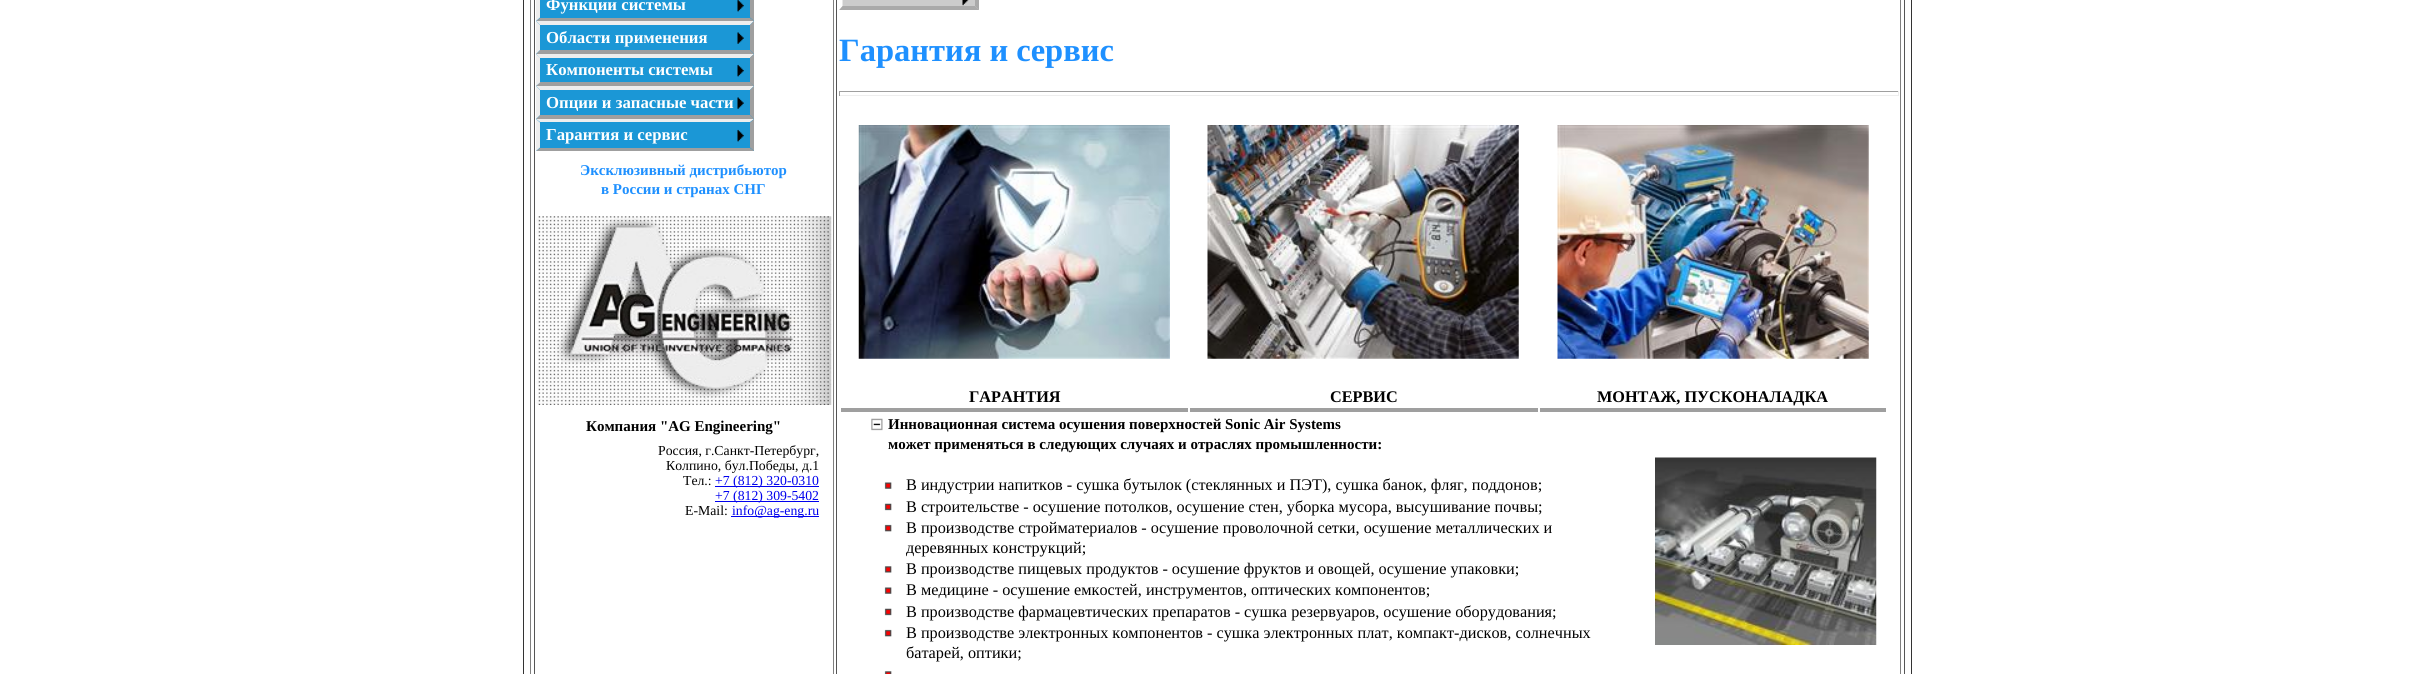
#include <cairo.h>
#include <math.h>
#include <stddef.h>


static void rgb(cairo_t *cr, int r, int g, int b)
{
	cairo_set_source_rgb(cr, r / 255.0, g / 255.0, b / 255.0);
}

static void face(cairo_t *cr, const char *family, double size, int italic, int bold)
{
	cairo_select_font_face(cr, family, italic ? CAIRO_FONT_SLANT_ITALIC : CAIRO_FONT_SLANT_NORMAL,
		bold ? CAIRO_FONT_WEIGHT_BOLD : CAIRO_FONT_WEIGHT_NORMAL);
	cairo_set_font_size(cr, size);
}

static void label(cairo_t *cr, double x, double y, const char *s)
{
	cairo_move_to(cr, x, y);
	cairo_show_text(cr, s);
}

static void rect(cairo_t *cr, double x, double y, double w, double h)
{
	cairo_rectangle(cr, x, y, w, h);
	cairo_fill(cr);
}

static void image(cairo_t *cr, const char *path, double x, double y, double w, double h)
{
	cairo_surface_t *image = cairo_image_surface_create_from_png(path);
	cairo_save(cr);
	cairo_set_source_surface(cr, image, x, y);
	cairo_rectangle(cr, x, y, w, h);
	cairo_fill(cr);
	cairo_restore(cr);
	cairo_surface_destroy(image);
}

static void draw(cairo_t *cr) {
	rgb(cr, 255, 255, 255);
	cairo_paint(cr);
	rgb(cr, 51, 51, 51);
	rect(cr, 1911, 0, 1, 674);
	rect(cr, 523, 0, 1, 674);
	rgb(cr, 85, 85, 85);
	rect(cr, 1904, 0, 1, 674);
	rgb(cr, 128, 128, 128);
	rect(cr, 530, 0, 1, 674);
	rect(cr, 833, 0, 1, 674);
	rgb(cr, 85, 85, 85);
	rect(cr, 534, 0, 1, 674);
	rgb(cr, 27, 151, 214);
	rect(cr, 536, 0, 218, 151);
	image(cr, "image0.png", 737, 0, 7, 12);
	rgb(cr, 159, 159, 159);
	cairo_new_path(cr);
	cairo_move_to(cr, 754, -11);
	cairo_line_to(cr, 754, 21);
	cairo_line_to(cr, 750, 17.5);
	cairo_line_to(cr, 750, -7.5);
	cairo_close_path(cr);
	cairo_fill(cr);
	cairo_new_path(cr);
	cairo_move_to(cr, 754, 21);
	cairo_line_to(cr, 536, 21);
	cairo_line_to(cr, 540, 18);
	cairo_line_to(cr, 750, 18);
	cairo_close_path(cr);
	cairo_fill(cr);
	rgb(cr, 238, 238, 238);
	cairo_new_path(cr);
	cairo_move_to(cr, 536, 21);
	cairo_line_to(cr, 536, -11);
	cairo_line_to(cr, 540, -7.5);
	cairo_line_to(cr, 540, 17.5);
	cairo_close_path(cr);
	cairo_fill(cr);
	face(cr, "Liberation Serif", 16.75, 0, 1);
	rgb(cr, 255, 255, 255);
	label(cr, 546, 10, "Функции системы");
	image(cr, "image1.png", 737, 32, 7, 12);
	rgb(cr, 238, 238, 238);
	cairo_new_path(cr);
	cairo_move_to(cr, 536, 21);
	cairo_line_to(cr, 754, 21);
	cairo_line_to(cr, 750, 25);
	cairo_line_to(cr, 540, 25);
	cairo_close_path(cr);
	cairo_fill(cr);
	rgb(cr, 159, 159, 159);
	cairo_new_path(cr);
	cairo_move_to(cr, 754, 21);
	cairo_line_to(cr, 754, 54);
	cairo_line_to(cr, 750, 50);
	cairo_line_to(cr, 750, 25);
	cairo_close_path(cr);
	cairo_fill(cr);
	cairo_new_path(cr);
	cairo_move_to(cr, 754, 54);
	cairo_line_to(cr, 536, 54);
	cairo_line_to(cr, 540, 50);
	cairo_line_to(cr, 750, 50);
	cairo_close_path(cr);
	cairo_fill(cr);
	rgb(cr, 238, 238, 238);
	cairo_new_path(cr);
	cairo_move_to(cr, 536, 54);
	cairo_line_to(cr, 536, 21);
	cairo_line_to(cr, 540, 25);
	cairo_line_to(cr, 540, 50);
	cairo_close_path(cr);
	cairo_fill(cr);
	rgb(cr, 255, 255, 255);
	label(cr, 546, 43, "Области применения");
	image(cr, "image2.png", 737, 64, 7, 13);
	rgb(cr, 238, 238, 238);
	cairo_new_path(cr);
	cairo_move_to(cr, 536, 54);
	cairo_line_to(cr, 754, 54);
	cairo_line_to(cr, 750, 58);
	cairo_line_to(cr, 540, 58);
	cairo_close_path(cr);
	cairo_fill(cr);
	rgb(cr, 159, 159, 159);
	cairo_new_path(cr);
	cairo_move_to(cr, 754, 54);
	cairo_line_to(cr, 754, 86);
	cairo_line_to(cr, 750, 82.5);
	cairo_line_to(cr, 750, 57.5);
	cairo_close_path(cr);
	cairo_fill(cr);
	cairo_new_path(cr);
	cairo_move_to(cr, 754, 86);
	cairo_line_to(cr, 536, 86);
	cairo_line_to(cr, 540, 82);
	cairo_line_to(cr, 750, 82);
	cairo_close_path(cr);
	cairo_fill(cr);
	rgb(cr, 238, 238, 238);
	cairo_new_path(cr);
	cairo_move_to(cr, 536, 86);
	cairo_line_to(cr, 536, 54);
	cairo_line_to(cr, 540, 57.5);
	cairo_line_to(cr, 540, 82.5);
	cairo_close_path(cr);
	cairo_fill(cr);
	rgb(cr, 255, 255, 255);
	label(cr, 546, 75, "Компоненты системы");
	image(cr, "image1.png", 737, 97, 7, 12);
	rgb(cr, 238, 238, 238);
	cairo_new_path(cr);
	cairo_move_to(cr, 536, 86);
	cairo_line_to(cr, 754, 86);
	cairo_line_to(cr, 750, 90);
	cairo_line_to(cr, 540, 90);
	cairo_close_path(cr);
	cairo_fill(cr);
	rgb(cr, 159, 159, 159);
	cairo_new_path(cr);
	cairo_move_to(cr, 754, 86);
	cairo_line_to(cr, 754, 119);
	cairo_line_to(cr, 750, 115);
	cairo_line_to(cr, 750, 90);
	cairo_close_path(cr);
	cairo_fill(cr);
	cairo_new_path(cr);
	cairo_move_to(cr, 754, 119);
	cairo_line_to(cr, 536, 119);
	cairo_line_to(cr, 540, 115);
	cairo_line_to(cr, 750, 115);
	cairo_close_path(cr);
	cairo_fill(cr);
	rgb(cr, 238, 238, 238);
	cairo_new_path(cr);
	cairo_move_to(cr, 536, 119);
	cairo_line_to(cr, 536, 86);
	cairo_line_to(cr, 540, 90);
	cairo_line_to(cr, 540, 115);
	cairo_close_path(cr);
	cairo_fill(cr);
	rgb(cr, 255, 255, 255);
	label(cr, 546, 108, "Опции и запасные части");
	image(cr, "image2.png", 737, 129, 7, 13);
	rgb(cr, 238, 238, 238);
	cairo_new_path(cr);
	cairo_move_to(cr, 536, 119);
	cairo_line_to(cr, 754, 119);
	cairo_line_to(cr, 750, 122);
	cairo_line_to(cr, 540, 122);
	cairo_close_path(cr);
	cairo_fill(cr);
	rgb(cr, 159, 159, 159);
	cairo_new_path(cr);
	cairo_move_to(cr, 754, 119);
	cairo_line_to(cr, 754, 151);
	cairo_line_to(cr, 750, 147.5);
	cairo_line_to(cr, 750, 122.5);
	cairo_close_path(cr);
	cairo_fill(cr);
	cairo_new_path(cr);
	cairo_move_to(cr, 754, 151);
	cairo_line_to(cr, 536, 151);
	cairo_line_to(cr, 540, 148);
	cairo_line_to(cr, 750, 148);
	cairo_close_path(cr);
	cairo_fill(cr);
	rgb(cr, 238, 238, 238);
	cairo_new_path(cr);
	cairo_move_to(cr, 536, 151);
	cairo_line_to(cr, 536, 119);
	cairo_line_to(cr, 540, 122.5);
	cairo_line_to(cr, 540, 147.5);
	cairo_close_path(cr);
	cairo_fill(cr);
	rgb(cr, 255, 255, 255);
	label(cr, 546, 140, "Гарантия и сервис");
	face(cr, "Liberation Serif", 15, 0, 1);
	rgb(cr, 30, 144, 255);
	label(cr, 580, 175, "Эксклюзивный дистрибьютор");
	label(cr, 601, 194, "в России и странах СНГ");
	image(cr, "image3.png", 536, 216, 296, 189);
	rgb(cr, 0, 0, 0);
	label(cr, 586, 431, "Компания \"AG Engineering\"");
	face(cr, "Liberation Serif", 13.75, 0, 0);
	label(cr, 658, 455, "Россия, г.Санкт-Петербург,");
	label(cr, 666, 470, "Колпино, бул.Победы, д.1");
	label(cr, 683, 485, "Тел.:");
	rgb(cr, 0, 0, 238);
	rect(cr, 715, 486, 104, 1);
	label(cr, 715, 485, "+7 (812) 320-0310");
	rect(cr, 715, 501, 104, 1);
	label(cr, 715, 500, "+7 (812) 309-5402");
	rgb(cr, 0, 0, 0);
	label(cr, 685, 515, "E-Mail:");
	rgb(cr, 0, 0, 238);
	rect(cr, 731, 516, 88, 1);
	label(cr, 732, 515, "info@ag-eng.ru");
	rgb(cr, 128, 128, 128);
	rect(cr, 1900, 0, 1, 674);
	rgb(cr, 85, 85, 85);
	rect(cr, 836, 0, 1, 674);
	rgb(cr, 204, 204, 204);
	rect(cr, 839, 0, 140, 10);
	image(cr, "image4.png", 962, 0, 7, 6);
	rgb(cr, 170, 170, 170);
	cairo_new_path(cr);
	cairo_move_to(cr, 979, -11);
	cairo_line_to(cr, 979, 10);
	cairo_line_to(cr, 975, 6);
	cairo_line_to(cr, 975, -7.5);
	cairo_close_path(cr);
	cairo_fill(cr);
	cairo_new_path(cr);
	cairo_move_to(cr, 979, 10);
	cairo_line_to(cr, 839, 10);
	cairo_line_to(cr, 842, 6);
	cairo_line_to(cr, 975, 6);
	cairo_close_path(cr);
	cairo_fill(cr);
	rgb(cr, 255, 255, 255);
	cairo_new_path(cr);
	cairo_move_to(cr, 839, 10);
	cairo_line_to(cr, 839, -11);
	cairo_line_to(cr, 842.5, -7.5);
	cairo_line_to(cr, 842.5, 6);
	cairo_close_path(cr);
	cairo_fill(cr);
	face(cr, "Liberation Serif", 32.5, 0, 1);
	rgb(cr, 30, 144, 255);
	label(cr, 839, 61, "Гарантия и сервис");
	rgb(cr, 159, 159, 159);
	rect(cr, 839, 91, 1060, 1);
	rgb(cr, 238, 238, 238);
	rect(cr, 1898, 91, 1, 5);
	rect(cr, 839, 95, 1060, 1);
	rgb(cr, 159, 159, 159);
	rect(cr, 839, 91, 1, 5);
	image(cr, "image5.png", 858, 125, 312, 234);
	image(cr, "image6.png", 1207, 125, 312, 234);
	image(cr, "image7.png", 1557, 125, 312, 234);
	rect(cr, 841, 408, 347, 4);
	face(cr, "Liberation Serif", 16.25, 0, 1);
	rgb(cr, 0, 0, 0);
	label(cr, 969, 402, "ГАРАНТИЯ");
	rgb(cr, 159, 159, 159);
	rect(cr, 1190, 408, 348, 4);
	rgb(cr, 0, 0, 0);
	label(cr, 1330, 402, "СЕРВИС");
	rgb(cr, 159, 159, 159);
	rect(cr, 1540, 408, 346, 4);
	rgb(cr, 0, 0, 0);
	label(cr, 1597, 402, "МОНТАЖ, ПУСКОНАЛАДКА");
	image(cr, "image8.png", 871, 418, 12, 13);
	face(cr, "Liberation Serif", 15, 0, 1);
	label(cr, 888, 429, "Инновационная система осушения поверхностей Sonic Air Systems");
	label(cr, 888, 449, "может применяться в следующих случаях и отраслях промышленности:");
	image(cr, "image9.png", 884, 482, 8, 7);
	face(cr, "Liberation Serif", 16.25, 0, 0);
	label(cr, 906, 490, "В индустрии напитков - сушка бутылок (стеклянных и ПЭТ), сушка банок, фляг, поддонов;");
	image(cr, "image10.png", 884, 503, 8, 8);
	label(cr, 906, 512, "В строительстве - осушение потолков, осушение стен, уборка мусора, высушивание почвы;");
	image(cr, "image11.png", 884, 524, 8, 8);
	label(cr, 906, 533, "В производстве стройматериалов - осушение проволочной сетки, осушение металлических и");
	label(cr, 906, 553, "деревянных конструкций;");
	image(cr, "image12.png", 884, 566, 8, 7);
	label(cr, 906, 574, "В производстве пищевых продуктов - осушение фруктов и овощей, осушение упаковки;");
	image(cr, "image9.png", 884, 587, 8, 7);
	label(cr, 906, 595, "В медицине - осушение емкостей, инструментов, оптических компонентов;");
	image(cr, "image10.png", 884, 608, 8, 8);
	label(cr, 906, 617, "В производстве фармацевтических препаратов - сушка резервуаров, осушение оборудования;");
	image(cr, "image11.png", 884, 629, 8, 8);
	label(cr, 906, 638, "В производстве электронных компонентов - сушка электронных плат, компакт-дисков, солнечных");
	label(cr, 906, 658, "батарей, оптики;");
	image(cr, "image13.png", 884, 671, 8, 3);
	image(cr, "image14.png", 1655, 457, 222, 188);
}

int main(void) {
	cairo_surface_t *surface = cairo_image_surface_create(CAIRO_FORMAT_RGB24, 2435, 674);
	cairo_t *cr = cairo_create(surface);
	cairo_font_options_t *options = cairo_font_options_create();
	cairo_font_options_set_hint_metrics(options, CAIRO_HINT_METRICS_OFF);
	cairo_font_options_set_hint_style(options, CAIRO_HINT_STYLE_NONE);
	cairo_set_font_options(cr, options);
	cairo_set_miter_limit(cr, 4);
	draw(cr);
	cairo_surface_write_to_png(surface, "render.png");
	cairo_font_options_destroy(options);
	cairo_destroy(cr);
	cairo_surface_destroy(surface);
	return 0;
}
